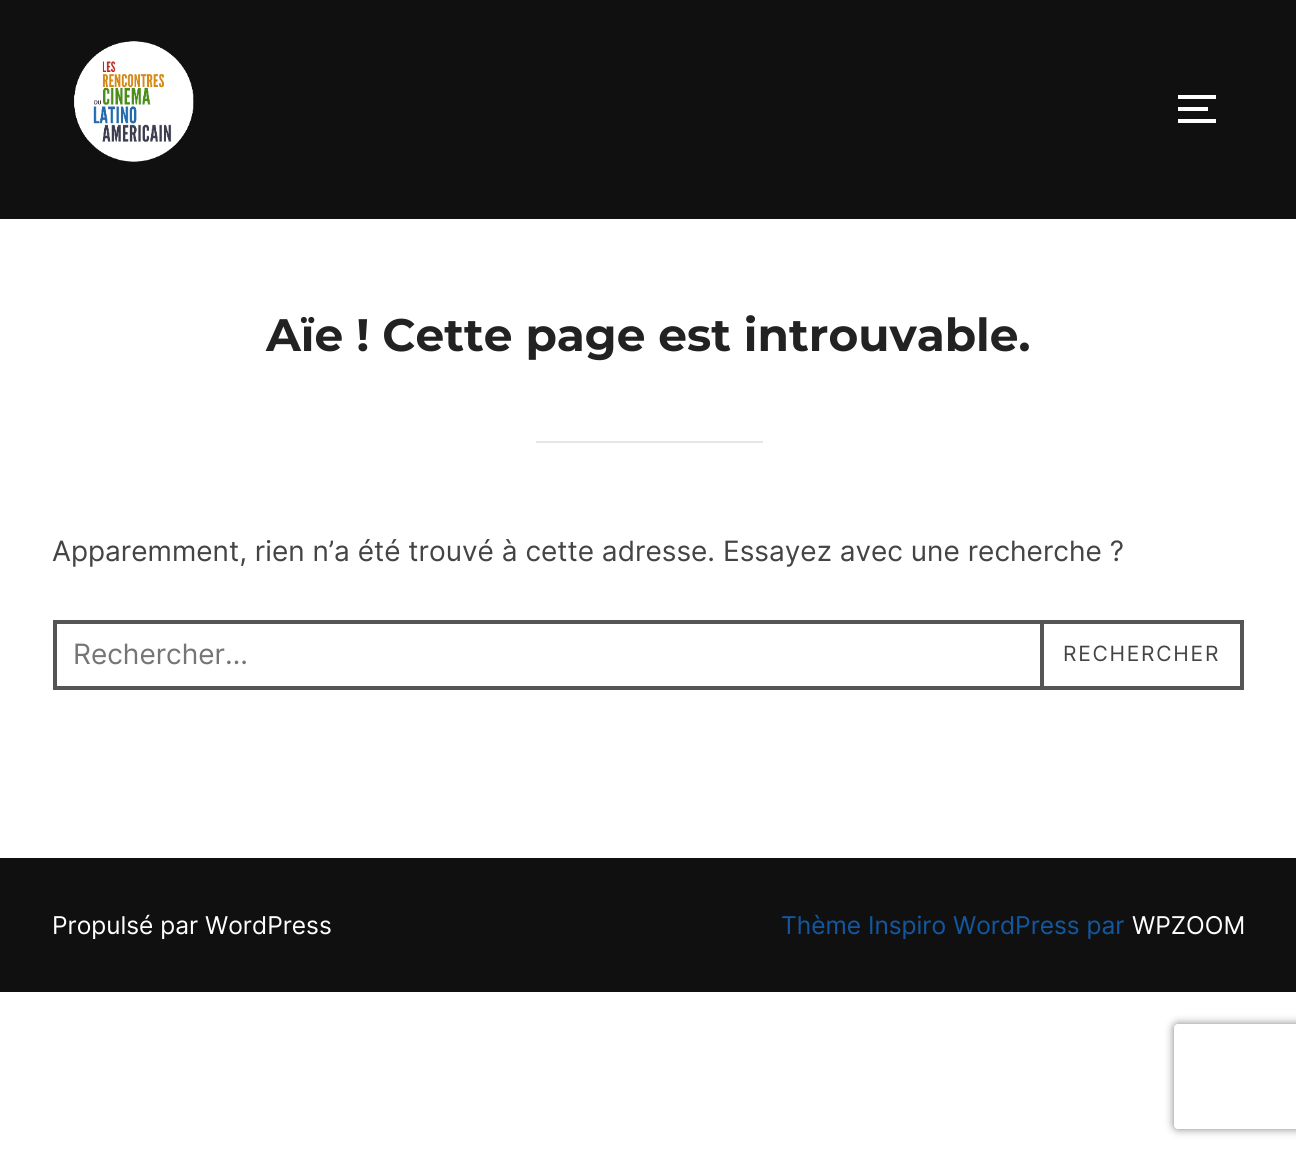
#include <cairo.h>
#include <math.h>
#include <stddef.h>


static void rgb(cairo_t *cr, int r, int g, int b)
{
	cairo_set_source_rgb(cr, r / 255.0, g / 255.0, b / 255.0);
}

static void face(cairo_t *cr, const char *family, double size, int italic, int bold)
{
	cairo_select_font_face(cr, family, italic ? CAIRO_FONT_SLANT_ITALIC : CAIRO_FONT_SLANT_NORMAL,
		bold ? CAIRO_FONT_WEIGHT_BOLD : CAIRO_FONT_WEIGHT_NORMAL);
	cairo_set_font_size(cr, size);
}

static void label(cairo_t *cr, double x, double y, const char *s)
{
	cairo_move_to(cr, x, y);
	cairo_show_text(cr, s);
}

static void tracked(cairo_t *cr, double x, double y, const char *s, double letter, double word)
{
	cairo_move_to(cr, x, y);
	while (*s) {
		char ch[5] = {0};
		int n = 0;
		do ch[n++] = *s++; while ((*s & 0xC0) == 0x80);
		cairo_show_text(cr, ch);
		cairo_rel_move_to(cr, letter + word * (*ch == ' '), 0);
	}
}

static void rect(cairo_t *cr, double x, double y, double w, double h)
{
	cairo_rectangle(cr, x, y, w, h);
	cairo_fill(cr);
}

static void rrect(cairo_t *cr, double x, double y, double w, double h, double r)
{
	cairo_new_sub_path(cr);
	cairo_arc(cr, x + w - r, y + h - r, r, 0, M_PI / 2);
	cairo_arc(cr, x + r, y + h - r, r, M_PI / 2, M_PI);
	cairo_arc(cr, x + r, y + r, r, M_PI, 1.5 * M_PI);
	cairo_arc(cr, x + w - r, y + r, r, 1.5 * M_PI, 2 * M_PI);
	cairo_close_path(cr);
}

static void soft_shadow(cairo_t *cr, double x, double y, double w, double h, double r, double blur, double alpha)
{
	cairo_push_group_with_content(cr, CAIRO_CONTENT_ALPHA);
	cairo_set_operator(cr, CAIRO_OPERATOR_SOURCE);
	for (int i = 15; i >= -15 && fmin(w, h) + blur * i / 3 > 0; i -= 2) {
		double e = blur * i / 6;
		cairo_set_source_rgba(cr, 0, 0, 0, alpha * erfc((i - 1) / 8.5) / 2);
		rrect(cr, x - e, y - e, w + 2 * e, h + 2 * e, fmax(0, fmin(r + e + blur * .6, fmin(w, h) / 2 + e)));
		cairo_fill(cr);
	}
	cairo_pattern_t *soft = cairo_pop_group(cr);
	cairo_mask(cr, soft);
	cairo_pattern_destroy(soft);
}

static void image(cairo_t *cr, const char *path, double x, double y, double w, double h)
{
	cairo_surface_t *image = cairo_image_surface_create_from_png(path);
	cairo_save(cr);
	cairo_set_source_surface(cr, image, x, y);
	cairo_rectangle(cr, x, y, w, h);
	cairo_fill(cr);
	cairo_restore(cr);
	cairo_surface_destroy(image);
}

static void draw(cairo_t *cr) {
	rgb(cr, 255, 255, 255);
	cairo_paint(cr);
	rgb(cr, 16, 16, 16);
	rect(cr, 0, 0, 1296, 219);
	image(cr, "image0.png", 74, 41, 120, 121);
	rgb(cr, 255, 255, 255);
	rect(cr, 1178, 95, 38, 4);
	rect(cr, 1178, 107, 30, 4);
	rect(cr, 1178, 119, 38, 4);
	face(cr, "Montserrat", 45.5, 0, 1);
	rgb(cr, 34, 34, 34);
	label(cr, 266, 351, "Aïe ! Cette page est introuvable.");
	rgb(cr, 230, 230, 230);
	rect(cr, 536, 441, 227, 2);
	face(cr, "Inter", 28, 0, 0);
	rgb(cr, 68, 68, 68);
	label(cr, 52, 561, "Apparemment, rien n’a été trouvé à cette adresse. Essayez avec une recherche ?");
	cairo_rectangle(cr, 55, 622, 1187, 66);
	rgb(cr, 86, 85, 85);
	cairo_set_line_width(cr, 4);
	cairo_stroke(cr);
	rgb(cr, 117, 117, 117);
	label(cr, 73, 664, "Rechercher…");
	cairo_rectangle(cr, 1042, 622, 200, 66);
	rgb(cr, 86, 85, 85);
	cairo_stroke(cr);
	face(cr, "Inter", 21, 0, 0);
	rgb(cr, 68, 68, 68);
	tracked(cr, 1063, 661, "RECHERCHER", 1.75, 0);
	rgb(cr, 16, 16, 16);
	rect(cr, 0, 858, 1296, 134);
	face(cr, "Inter", 24.5, 0, 0);
	rgb(cr, 255, 255, 255);
	label(cr, 52, 934, "Propulsé par WordPress");
	rgb(cr, 18, 88, 160);
	label(cr, 781, 934, "Thème Inspiro WordPress par");
	rgb(cr, 255, 255, 255);
	label(cr, 1132, 934, "WPZOOM");
	cairo_save(cr);
	cairo_set_fill_rule(cr, CAIRO_FILL_RULE_EVEN_ODD);
	cairo_new_path(cr);
	cairo_move_to(cr, 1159, 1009);
	cairo_line_to(cr, 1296, 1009);
	cairo_line_to(cr, 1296, 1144);
	cairo_line_to(cr, 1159, 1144);
	cairo_close_path(cr);
	cairo_move_to(cr, 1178, 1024);
	cairo_line_to(cr, 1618, 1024);
	cairo_curve_to(cr, 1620, 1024, 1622, 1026, 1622, 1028);
	cairo_line_to(cr, 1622, 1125);
	cairo_curve_to(cr, 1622, 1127, 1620, 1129, 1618, 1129);
	cairo_line_to(cr, 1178, 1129);
	cairo_curve_to(cr, 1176, 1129, 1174, 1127, 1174, 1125);
	cairo_line_to(cr, 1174, 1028);
	cairo_curve_to(cr, 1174, 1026, 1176, 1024, 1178, 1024);
	cairo_close_path(cr);
	cairo_clip(cr);
	rgb(cr, 128, 128, 128);
	soft_shadow(cr, 1174, 1024, 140, 105, 4, 4.5, 1);
	cairo_restore(cr);
}

int main(void) {
	cairo_surface_t *surface = cairo_image_surface_create(CAIRO_FORMAT_RGB24, 1296, 1152);
	cairo_t *cr = cairo_create(surface);
	cairo_font_options_t *options = cairo_font_options_create();
	cairo_font_options_set_hint_metrics(options, CAIRO_HINT_METRICS_OFF);
	cairo_font_options_set_hint_style(options, CAIRO_HINT_STYLE_NONE);
	cairo_set_font_options(cr, options);
	cairo_set_miter_limit(cr, 4);
	draw(cr);
	cairo_surface_write_to_png(surface, "render.png");
	cairo_font_options_destroy(options);
	cairo_destroy(cr);
	cairo_surface_destroy(surface);
	return 0;
}
